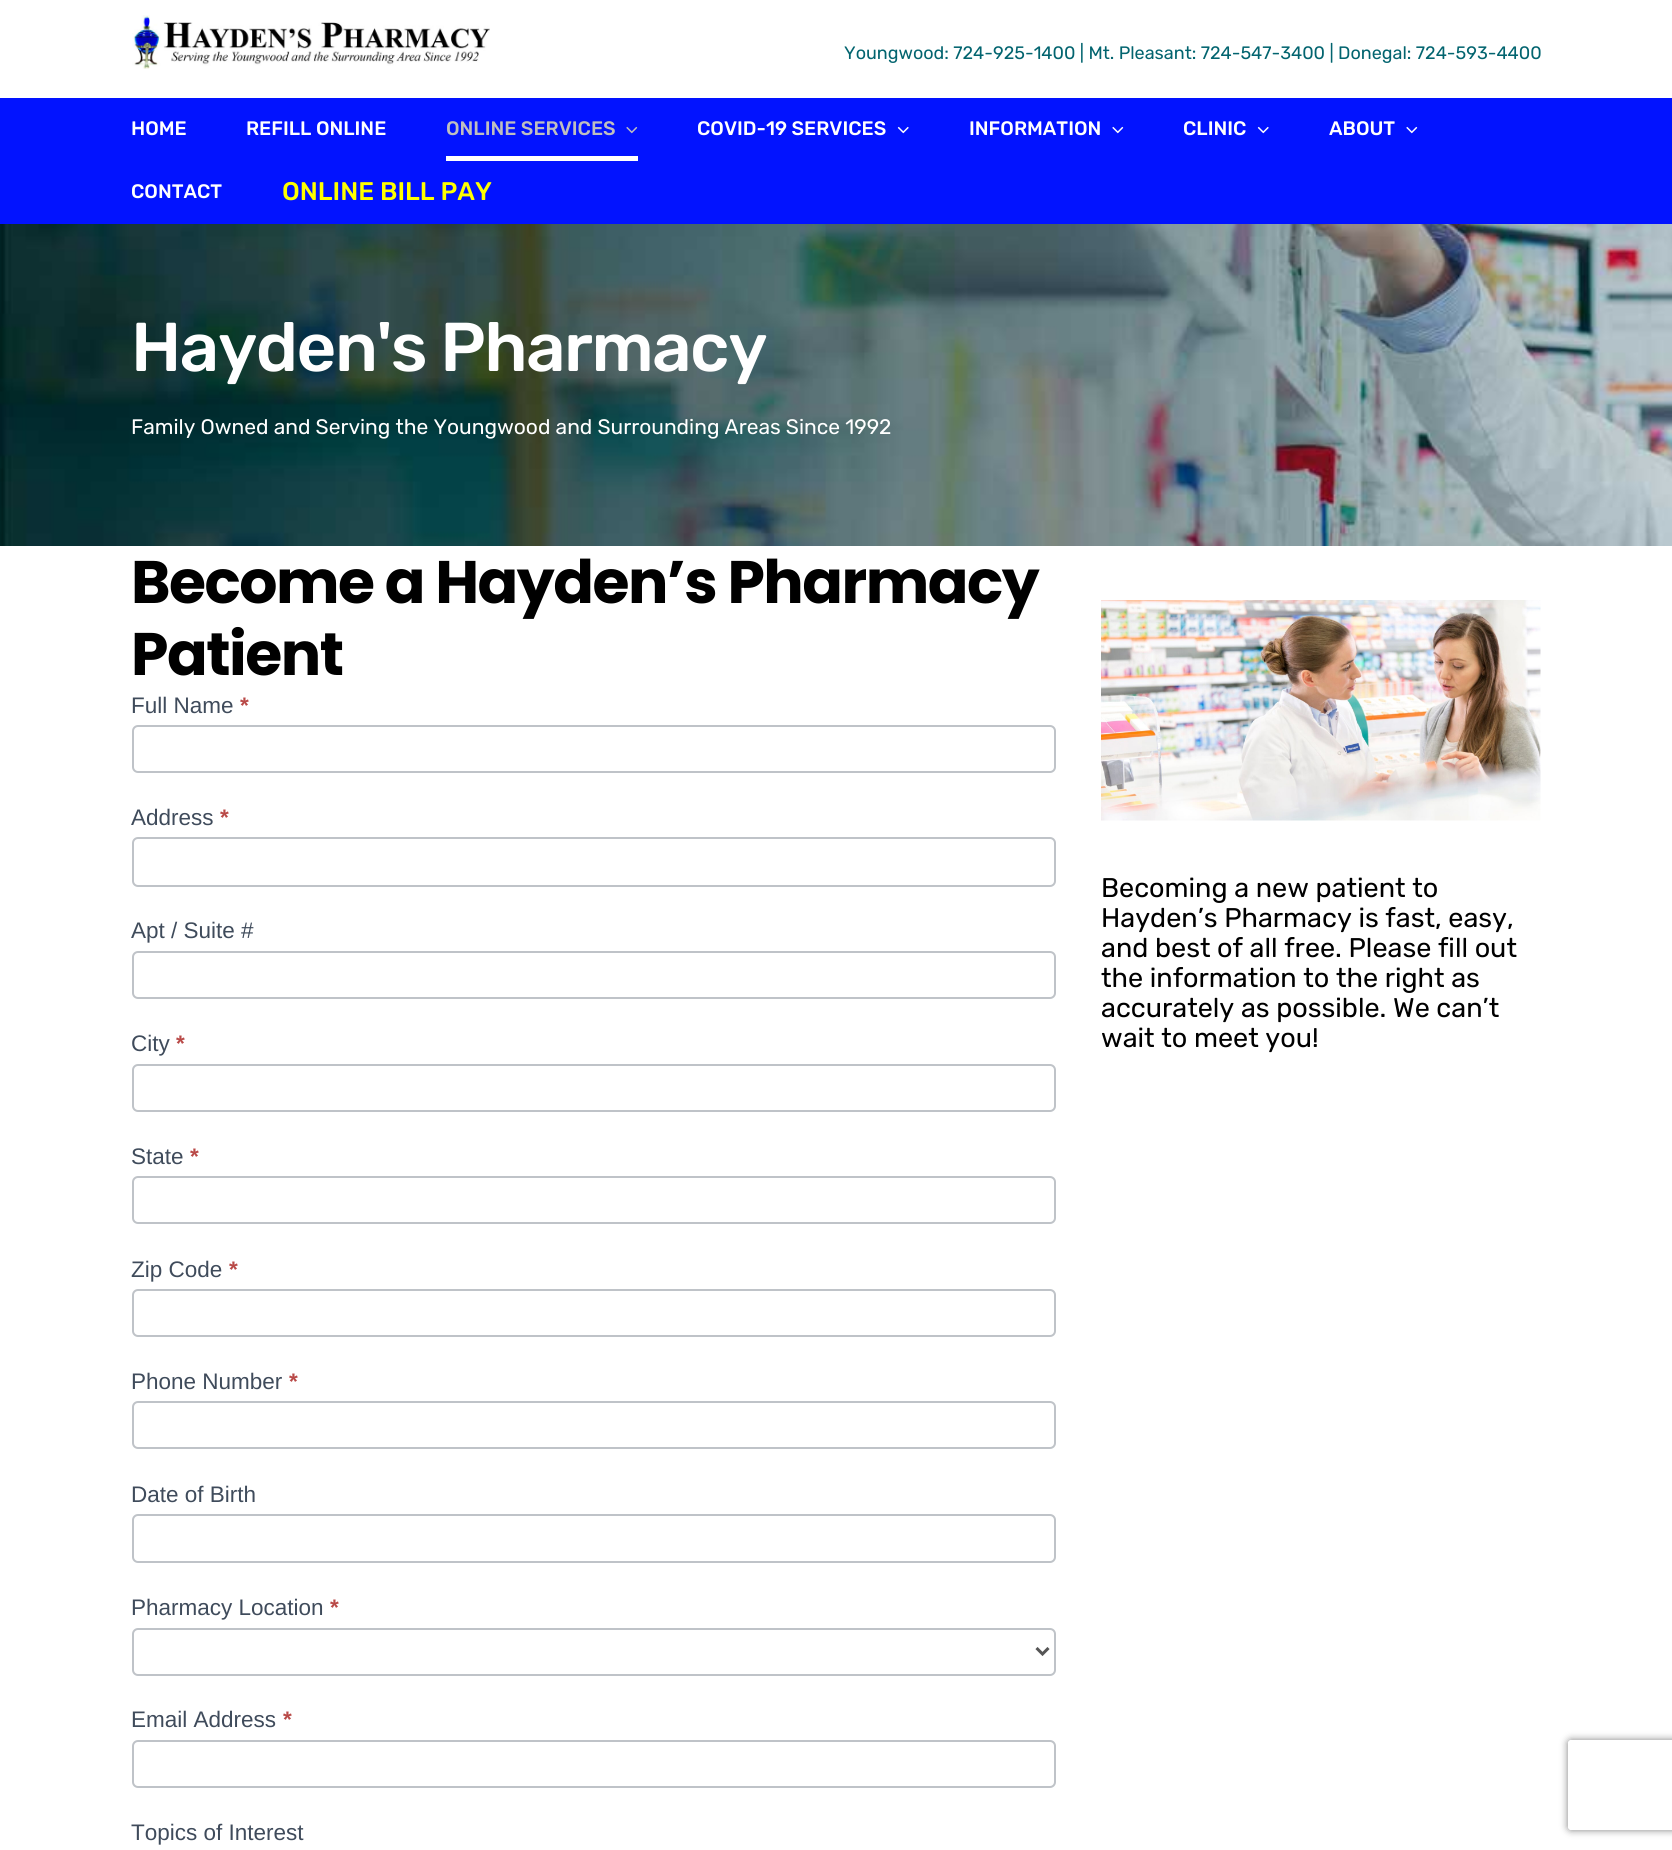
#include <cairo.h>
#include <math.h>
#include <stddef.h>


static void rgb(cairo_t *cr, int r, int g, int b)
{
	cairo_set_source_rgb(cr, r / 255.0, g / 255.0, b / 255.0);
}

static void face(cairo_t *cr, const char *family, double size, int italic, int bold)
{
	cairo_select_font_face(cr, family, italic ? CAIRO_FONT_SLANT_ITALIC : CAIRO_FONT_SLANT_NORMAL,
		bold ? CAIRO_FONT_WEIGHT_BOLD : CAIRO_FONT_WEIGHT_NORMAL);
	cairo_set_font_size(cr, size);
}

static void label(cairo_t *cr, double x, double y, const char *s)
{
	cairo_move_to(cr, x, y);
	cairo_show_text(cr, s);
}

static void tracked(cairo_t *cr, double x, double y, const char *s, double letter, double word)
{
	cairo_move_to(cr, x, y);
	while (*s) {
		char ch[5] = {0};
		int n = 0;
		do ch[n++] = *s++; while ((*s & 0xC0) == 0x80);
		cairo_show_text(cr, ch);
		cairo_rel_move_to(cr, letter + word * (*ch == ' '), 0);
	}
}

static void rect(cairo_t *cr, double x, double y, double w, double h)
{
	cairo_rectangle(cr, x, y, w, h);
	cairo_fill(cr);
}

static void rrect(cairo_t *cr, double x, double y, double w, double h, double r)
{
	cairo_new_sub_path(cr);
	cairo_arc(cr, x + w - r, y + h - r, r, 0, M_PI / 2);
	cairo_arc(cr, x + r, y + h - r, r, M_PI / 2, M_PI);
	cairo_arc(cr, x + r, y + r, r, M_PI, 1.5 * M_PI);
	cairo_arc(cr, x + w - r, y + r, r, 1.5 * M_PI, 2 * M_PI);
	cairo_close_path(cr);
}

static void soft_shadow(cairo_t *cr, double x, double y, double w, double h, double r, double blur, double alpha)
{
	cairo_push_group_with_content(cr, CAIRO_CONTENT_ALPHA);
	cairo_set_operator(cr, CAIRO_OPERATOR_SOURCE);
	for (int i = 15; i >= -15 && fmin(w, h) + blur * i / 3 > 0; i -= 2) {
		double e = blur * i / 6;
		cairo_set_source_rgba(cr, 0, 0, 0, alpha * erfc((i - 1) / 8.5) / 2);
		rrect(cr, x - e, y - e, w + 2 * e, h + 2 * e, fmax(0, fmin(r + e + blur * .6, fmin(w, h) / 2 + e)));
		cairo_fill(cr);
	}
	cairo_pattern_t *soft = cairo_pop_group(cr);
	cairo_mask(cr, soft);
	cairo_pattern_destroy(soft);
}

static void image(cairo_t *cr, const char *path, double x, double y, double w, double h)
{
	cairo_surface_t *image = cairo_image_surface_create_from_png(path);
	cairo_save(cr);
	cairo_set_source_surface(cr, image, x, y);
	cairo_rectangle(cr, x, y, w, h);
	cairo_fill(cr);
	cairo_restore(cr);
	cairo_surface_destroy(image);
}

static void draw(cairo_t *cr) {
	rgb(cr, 255, 255, 255);
	cairo_paint(cr);
	image(cr, "image0.png", 132, 15, 358, 54);
	face(cr, "Rubik", 18, 0, 0);
	rgb(cr, 2, 100, 111);
	label(cr, 844, 59, "Youngwood: 724-925-1400 | Mt. Pleasant: 724-547-3400 | Donegal: 724-593-4400");
	rgb(cr, 2, 19, 255);
	rect(cr, 0, 98, 1672, 126);
	face(cr, "Rubik Medium", 19.5, 0, 0);
	rgb(cr, 255, 255, 255);
	label(cr, 131, 135, "HOME");
	label(cr, 246, 135, "REFILL ONLINE");
	rgb(cr, 191, 191, 191);
	label(cr, 446, 135, "ONLINE SERVICES");
	image(cr, "image1.png", 626, 126, 12, 8);
	rgb(cr, 255, 255, 255);
	rect(cr, 446, 156, 192, 5);
	label(cr, 697, 135, "COVID-19 SERVICES");
	image(cr, "image2.png", 897, 126, 12, 8);
	label(cr, 969, 135, "INFORMATION");
	image(cr, "image3.png", 1112, 126, 12, 8);
	label(cr, 1183, 135, "CLINIC");
	image(cr, "image2.png", 1257, 126, 12, 8);
	label(cr, 1329, 135, "ABOUT");
	image(cr, "image3.png", 1406, 126, 12, 8);
	label(cr, 131, 198, "CONTACT");
	face(cr, "Rubik Medium", 25.5, 0, 0);
	rgb(cr, 255, 255, 0);
	label(cr, 282, 200, "ONLINE BILL PAY");
	image(cr, "image4.png", 0, 224, 1672, 322);
	face(cr, "Rubik Medium", 69, 0, 0);
	rgb(cr, 255, 255, 255);
	tracked(cr, 131, 371, "Hayden's Pharmacy", -1.5, 0);
	face(cr, "Rubik", 21, 0, 0);
	label(cr, 131, 434, "Family Owned and Serving the Youngwood and Surrounding Areas Since 1992");
	face(cr, "Poppins", 60, 0, 1);
	rgb(cr, 0, 0, 0);
	tracked(cr, 131, 603, "Become a Hayden’s Pharmacy", -1.5, 0);
	tracked(cr, 131, 675, "Patient", -1.5, 0);
	face(cr, "Liberation Sans", 22.5, 0, 0);
	rgb(cr, 63, 75, 91);
	label(cr, 131, 713, "Full Name");
	face(cr, "Liberation Sans", 22.5, 0, 1);
	rgb(cr, 185, 74, 72);
	label(cr, 240, 713, "*");
	rrect(cr, 133, 726, 922, 46, 5);
	rgb(cr, 191, 195, 200);
	cairo_stroke(cr);
	face(cr, "Liberation Sans", 22.5, 0, 0);
	rgb(cr, 63, 75, 91);
	label(cr, 131, 825, "Address");
	face(cr, "Liberation Sans", 22.5, 0, 1);
	rgb(cr, 185, 74, 72);
	label(cr, 220, 825, "*");
	rrect(cr, 133, 838, 922, 48, 5);
	rgb(cr, 191, 195, 200);
	cairo_stroke(cr);
	face(cr, "Liberation Sans", 22.5, 0, 0);
	rgb(cr, 63, 75, 91);
	label(cr, 131, 938, "Apt / Suite #");
	rrect(cr, 133, 952, 922, 46, 5);
	rgb(cr, 191, 195, 200);
	cairo_stroke(cr);
	rgb(cr, 63, 75, 91);
	label(cr, 131, 1051, "City");
	face(cr, "Liberation Sans", 22.5, 0, 1);
	rgb(cr, 185, 74, 72);
	label(cr, 176, 1051, "*");
	rrect(cr, 133, 1065, 922, 46, 5);
	rgb(cr, 191, 195, 200);
	cairo_stroke(cr);
	face(cr, "Liberation Sans", 22.5, 0, 0);
	rgb(cr, 63, 75, 91);
	label(cr, 131, 1164, "State");
	face(cr, "Liberation Sans", 22.5, 0, 1);
	rgb(cr, 185, 74, 72);
	label(cr, 190, 1164, "*");
	rrect(cr, 133, 1177, 922, 46, 5);
	rgb(cr, 191, 195, 200);
	cairo_stroke(cr);
	face(cr, "Liberation Sans", 22.5, 0, 0);
	rgb(cr, 63, 75, 91);
	label(cr, 131, 1277, "Zip Code");
	face(cr, "Liberation Sans", 22.5, 0, 1);
	rgb(cr, 185, 74, 72);
	label(cr, 229, 1277, "*");
	rrect(cr, 133, 1290, 922, 46, 5);
	rgb(cr, 191, 195, 200);
	cairo_stroke(cr);
	face(cr, "Liberation Sans", 22.5, 0, 0);
	rgb(cr, 63, 75, 91);
	label(cr, 131, 1389, "Phone Number");
	face(cr, "Liberation Sans", 22.5, 0, 1);
	rgb(cr, 185, 74, 72);
	label(cr, 289, 1389, "*");
	rrect(cr, 133, 1402, 922, 46, 5);
	rgb(cr, 191, 195, 200);
	cairo_stroke(cr);
	face(cr, "Liberation Sans", 22.5, 0, 0);
	rgb(cr, 63, 75, 91);
	label(cr, 131, 1502, "Date of Birth");
	rrect(cr, 133, 1515, 922, 47, 5);
	rgb(cr, 191, 195, 200);
	cairo_stroke(cr);
	rgb(cr, 63, 75, 91);
	label(cr, 131, 1615, "Pharmacy Location");
	face(cr, "Liberation Sans", 22.5, 0, 1);
	rgb(cr, 185, 74, 72);
	label(cr, 330, 1615, "*");
	rrect(cr, 133, 1629, 922, 46, 5);
	rgb(cr, 191, 195, 200);
	cairo_stroke(cr);
	cairo_new_path(cr);
	cairo_move_to(cr, 1036.5, 1648);
	cairo_line_to(cr, 1042.5, 1654);
	cairo_line_to(cr, 1048.5, 1648);
	rgb(cr, 85, 85, 85);
	cairo_set_line_width(cr, 3);
	cairo_stroke(cr);
	face(cr, "Liberation Sans", 22.5, 0, 0);
	rgb(cr, 63, 75, 91);
	label(cr, 131, 1727, "Email Address");
	face(cr, "Liberation Sans", 22.5, 0, 1);
	rgb(cr, 185, 74, 72);
	label(cr, 283, 1727, "*");
	rrect(cr, 133, 1741, 922, 46, 5);
	rgb(cr, 191, 195, 200);
	cairo_set_line_width(cr, 2);
	cairo_stroke(cr);
	face(cr, "Liberation Sans", 22.5, 0, 0);
	rgb(cr, 63, 75, 91);
	label(cr, 131, 1840, "Topics of Interest");
	image(cr, "image5.png", 1101, 600, 440, 221);
	face(cr, "Rubik", 27, 0, 0);
	rgb(cr, 0, 0, 0);
	label(cr, 1101, 897, "Becoming a new patient to");
	label(cr, 1101, 927, "Hayden’s Pharmacy is fast, easy,");
	label(cr, 1101, 957, "and best of all free. Please fill out");
	label(cr, 1101, 987, "the information to the right as");
	label(cr, 1101, 1017, "accurately as possible. We can’t");
	label(cr, 1101, 1047, "wait to meet you!");
	cairo_save(cr);
	cairo_set_fill_rule(cr, CAIRO_FILL_RULE_EVEN_ODD);
	cairo_new_path(cr);
	cairo_move_to(cr, 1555, 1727);
	cairo_line_to(cr, 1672, 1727);
	cairo_line_to(cr, 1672, 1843);
	cairo_line_to(cr, 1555, 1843);
	cairo_close_path(cr);
	cairo_move_to(cr, 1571, 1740);
	cairo_line_to(cr, 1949, 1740);
	cairo_curve_to(cr, 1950.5, 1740, 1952, 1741.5, 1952, 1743);
	cairo_line_to(cr, 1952, 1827);
	cairo_curve_to(cr, 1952, 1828.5, 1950.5, 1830, 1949, 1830);
	cairo_line_to(cr, 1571, 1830);
	cairo_curve_to(cr, 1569.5, 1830, 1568, 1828.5, 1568, 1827);
	cairo_line_to(cr, 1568, 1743);
	cairo_curve_to(cr, 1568, 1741.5, 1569.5, 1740, 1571, 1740);
	cairo_close_path(cr);
	cairo_clip(cr);
	rgb(cr, 128, 128, 128);
	soft_shadow(cr, 1568, 1740, 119, 90, 3, 4, 1);
	cairo_restore(cr);
}

int main(void) {
	cairo_surface_t *surface = cairo_image_surface_create(CAIRO_FORMAT_RGB24, 1672, 1850);
	cairo_t *cr = cairo_create(surface);
	cairo_font_options_t *options = cairo_font_options_create();
	cairo_font_options_set_hint_metrics(options, CAIRO_HINT_METRICS_OFF);
	cairo_font_options_set_hint_style(options, CAIRO_HINT_STYLE_NONE);
	cairo_set_font_options(cr, options);
	cairo_set_miter_limit(cr, 4);
	draw(cr);
	cairo_surface_write_to_png(surface, "render.png");
	cairo_font_options_destroy(options);
	cairo_destroy(cr);
	cairo_surface_destroy(surface);
	return 0;
}
